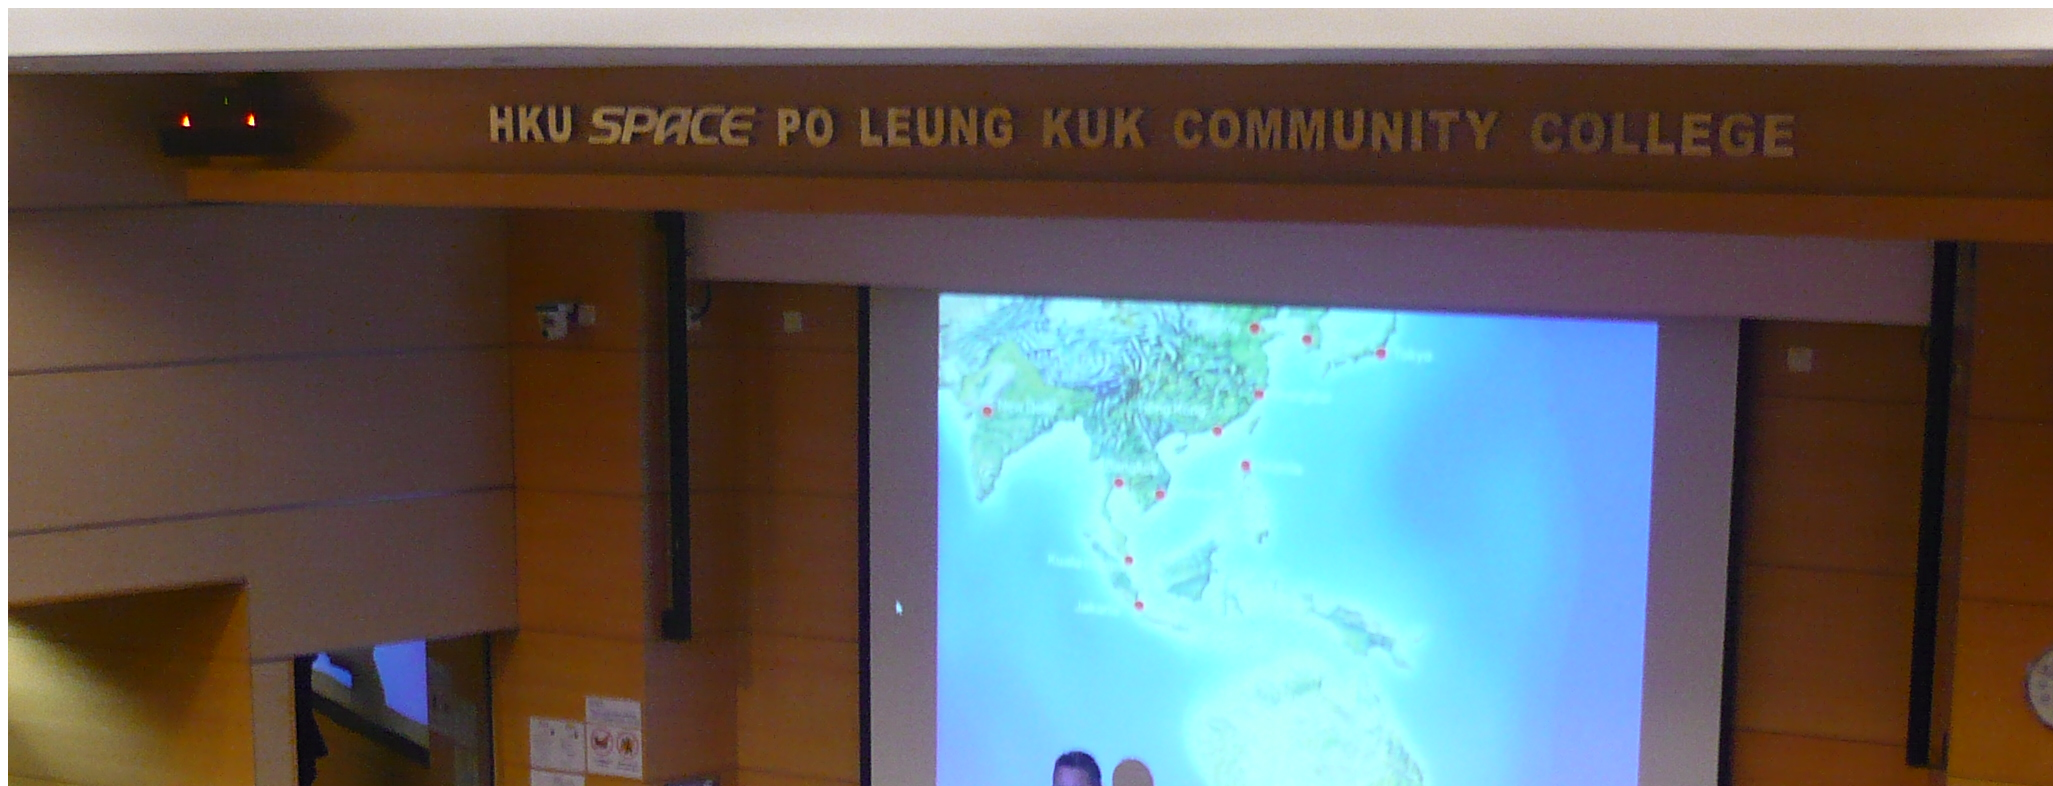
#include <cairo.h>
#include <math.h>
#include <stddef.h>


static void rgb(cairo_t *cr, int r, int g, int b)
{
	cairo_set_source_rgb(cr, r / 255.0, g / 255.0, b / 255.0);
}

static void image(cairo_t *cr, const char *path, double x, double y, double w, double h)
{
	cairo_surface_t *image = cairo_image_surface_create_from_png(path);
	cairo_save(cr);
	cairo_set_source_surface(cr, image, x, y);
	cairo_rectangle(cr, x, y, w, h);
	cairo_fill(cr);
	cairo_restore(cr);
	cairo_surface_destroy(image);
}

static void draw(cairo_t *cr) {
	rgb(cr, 255, 255, 255);
	cairo_paint(cr);
	image(cr, "image0.png", 8, 8, 2045, 778);
}

int main(void) {
	cairo_surface_t *surface = cairo_image_surface_create(CAIRO_FORMAT_RGB24, 2053, 786);
	cairo_t *cr = cairo_create(surface);
	cairo_font_options_t *options = cairo_font_options_create();
	cairo_font_options_set_hint_metrics(options, CAIRO_HINT_METRICS_OFF);
	cairo_font_options_set_hint_style(options, CAIRO_HINT_STYLE_NONE);
	cairo_set_font_options(cr, options);
	cairo_set_miter_limit(cr, 4);
	draw(cr);
	cairo_surface_write_to_png(surface, "render.png");
	cairo_font_options_destroy(options);
	cairo_destroy(cr);
	cairo_surface_destroy(surface);
	return 0;
}
